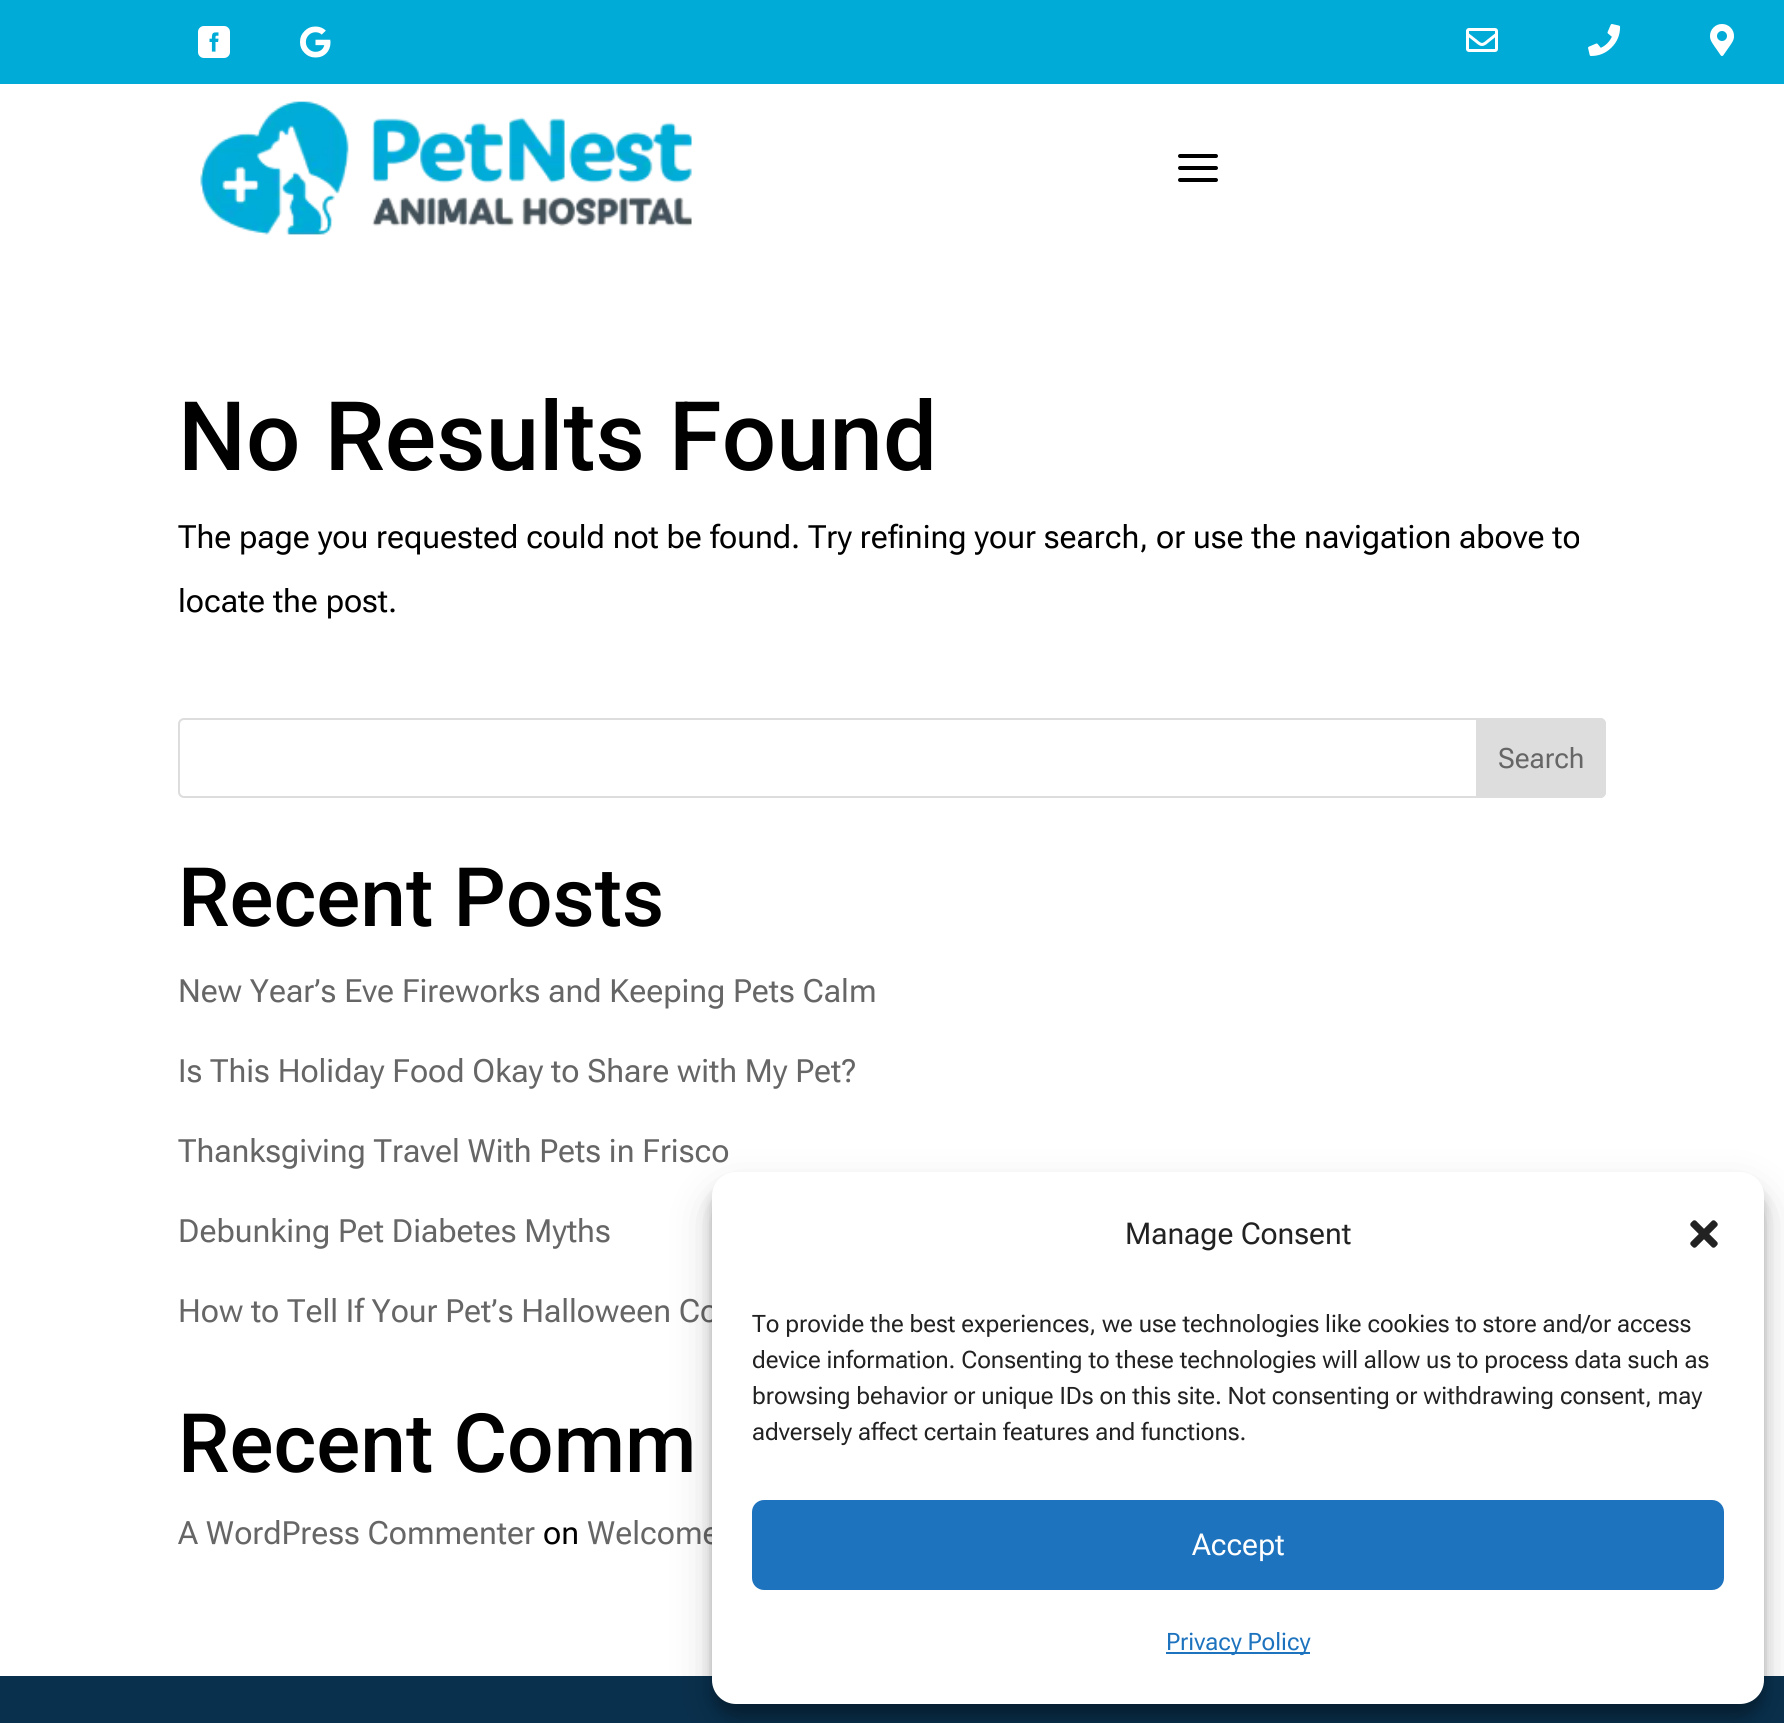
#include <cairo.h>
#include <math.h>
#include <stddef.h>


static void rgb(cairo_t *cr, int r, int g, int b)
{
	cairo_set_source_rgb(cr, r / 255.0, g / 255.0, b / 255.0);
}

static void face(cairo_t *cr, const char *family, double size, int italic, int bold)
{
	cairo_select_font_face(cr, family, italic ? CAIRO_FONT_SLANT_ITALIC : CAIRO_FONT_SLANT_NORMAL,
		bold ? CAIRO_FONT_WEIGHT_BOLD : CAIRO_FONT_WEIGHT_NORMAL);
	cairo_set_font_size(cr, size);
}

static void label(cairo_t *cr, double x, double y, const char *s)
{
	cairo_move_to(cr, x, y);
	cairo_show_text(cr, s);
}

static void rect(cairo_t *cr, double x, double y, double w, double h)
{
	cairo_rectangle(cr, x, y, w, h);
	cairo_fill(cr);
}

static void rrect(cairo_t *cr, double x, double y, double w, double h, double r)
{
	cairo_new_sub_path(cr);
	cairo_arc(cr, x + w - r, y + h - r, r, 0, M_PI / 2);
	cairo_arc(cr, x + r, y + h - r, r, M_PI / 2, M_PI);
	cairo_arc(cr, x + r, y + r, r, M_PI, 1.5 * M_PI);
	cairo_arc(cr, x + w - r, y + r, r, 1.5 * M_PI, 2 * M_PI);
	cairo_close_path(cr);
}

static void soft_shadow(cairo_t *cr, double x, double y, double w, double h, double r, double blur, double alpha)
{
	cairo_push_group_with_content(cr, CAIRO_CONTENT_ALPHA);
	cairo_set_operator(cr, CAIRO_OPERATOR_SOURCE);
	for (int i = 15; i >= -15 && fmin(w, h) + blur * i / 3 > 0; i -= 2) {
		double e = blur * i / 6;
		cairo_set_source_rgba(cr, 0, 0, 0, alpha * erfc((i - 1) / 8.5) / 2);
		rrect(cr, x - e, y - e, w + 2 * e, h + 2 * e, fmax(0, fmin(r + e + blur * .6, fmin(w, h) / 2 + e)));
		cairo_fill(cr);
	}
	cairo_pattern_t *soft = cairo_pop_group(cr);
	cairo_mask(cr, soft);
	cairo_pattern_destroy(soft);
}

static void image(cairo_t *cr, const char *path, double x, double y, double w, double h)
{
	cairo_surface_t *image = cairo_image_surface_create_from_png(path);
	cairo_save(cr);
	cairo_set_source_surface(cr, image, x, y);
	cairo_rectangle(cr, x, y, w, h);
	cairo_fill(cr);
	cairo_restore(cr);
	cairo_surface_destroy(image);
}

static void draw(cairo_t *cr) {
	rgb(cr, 255, 255, 255);
	cairo_paint(cr);
	rgb(cr, 0, 172, 215);
	rect(cr, 0, 0, 1784, 84);
	image(cr, "image0.png", 198, 26, 32, 32);
	image(cr, "image1.png", 300, 26, 31, 32);
	image(cr, "image2.png", 1466, 28, 32, 24);
	image(cr, "image3.png", 1588, 24, 33, 32);
	image(cr, "image4.png", 1710, 24, 24, 32);
	image(cr, "image5.png", 200, 101, 492, 134);
	image(cr, "image6.png", 1178, 154, 40, 28);
	face(cr, "Roboto Medium", 96, 0, 0);
	rgb(cr, 0, 0, 0);
	label(cr, 178, 470, "No Results Found");
	face(cr, "Roboto Flex", 32, 0, 0);
	label(cr, 178, 548, "The page you requested could not be found. Try refining your search, or use the navigation above to");
	label(cr, 178, 612, "locate the post.");
	rrect(cr, 179, 719, 1426, 78, 5);
	rgb(cr, 221, 221, 221);
	cairo_stroke(cr);
	cairo_new_path(cr);
	cairo_move_to(cr, 1477, 719);
	cairo_line_to(cr, 1600, 719);
	cairo_curve_to(cr, 1603, 719, 1605, 721, 1605, 724);
	cairo_line_to(cr, 1605, 792);
	cairo_curve_to(cr, 1605, 795, 1603, 797, 1600, 797);
	cairo_line_to(cr, 1477, 797);
	cairo_close_path(cr);
	cairo_fill_preserve(cr);
	cairo_stroke(cr);
	face(cr, "Roboto Flex", 28, 0, 0);
	rgb(cr, 102, 102, 102);
	label(cr, 1498, 768, "Search");
	face(cr, "Roboto Medium", 82, 0, 0);
	rgb(cr, 0, 0, 0);
	label(cr, 178, 926, "Recent Posts");
	face(cr, "Roboto Flex", 32, 0, 0);
	rgb(cr, 102, 102, 102);
	label(cr, 178, 1002, "New Year’s Eve Fireworks and Keeping Pets Calm");
	label(cr, 178, 1082, "Is This Holiday Food Okay to Share with My Pet?");
	label(cr, 178, 1162, "Thanksgiving Travel With Pets in Frisco");
	label(cr, 178, 1242, "Debunking Pet Diabetes Myths");
	label(cr, 178, 1322, "How to Tell If Your Pet’s Halloween Co");
	face(cr, "Roboto Medium", 82, 0, 0);
	rgb(cr, 0, 0, 0);
	label(cr, 178, 1472, "Recent Comm");
	face(cr, "Roboto Flex", 32, 0, 0);
	rgb(cr, 102, 102, 102);
	label(cr, 178, 1544, "A WordPress Commenter");
	rgb(cr, 0, 0, 0);
	label(cr, 543, 1544, "on");
	rgb(cr, 102, 102, 102);
	label(cr, 587, 1544, "Welcome");
	rgb(cr, 9, 48, 77);
	rect(cr, 0, 1676, 1784, 47);
	rgb(cr, 0, 0, 0);
	soft_shadow(cr, 712, 1184, 1052, 532, 24, 6, 0.23);
	soft_shadow(cr, 712, 1192, 1052, 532, 24, 20, 0.19);
	rgb(cr, 255, 255, 255);
	rrect(cr, 712, 1172, 1052, 532, 24);
	cairo_fill(cr);
	face(cr, "Roboto Flex", 30, 0, 0);
	rgb(cr, 34, 34, 34);
	label(cr, 1125, 1244, "Manage Consent");
	image(cr, "image7.png", 1690, 1220, 28, 28);
	face(cr, "Roboto Flex", 24, 0, 0);
	label(cr, 752, 1332, "To provide the best experiences, we use technologies like cookies to store and/or access");
	label(cr, 752, 1368, "device information. Consenting to these technologies will allow us to process data such as");
	label(cr, 752, 1404, "browsing behavior or unique IDs on this site. Not consenting or withdrawing consent, may");
	label(cr, 752, 1440, "adversely affect certain features and functions.");
	rgb(cr, 30, 115, 190);
	rrect(cr, 753, 1501, 970, 88, 11);
	cairo_fill_preserve(cr);
	cairo_stroke(cr);
	face(cr, "Roboto Flex", 30, 0, 0);
	rgb(cr, 255, 255, 255);
	label(cr, 1192, 1555, "Accept");
	rgb(cr, 30, 115, 190);
	rect(cr, 1166, 1652, 144, 2);
	face(cr, "Roboto Flex", 24, 0, 0);
	label(cr, 1166, 1650, "Privacy Policy");
}

int main(void) {
	cairo_surface_t *surface = cairo_image_surface_create(CAIRO_FORMAT_RGB24, 1784, 1723);
	cairo_t *cr = cairo_create(surface);
	cairo_font_options_t *options = cairo_font_options_create();
	cairo_font_options_set_hint_metrics(options, CAIRO_HINT_METRICS_OFF);
	cairo_font_options_set_hint_style(options, CAIRO_HINT_STYLE_NONE);
	cairo_set_font_options(cr, options);
	cairo_set_miter_limit(cr, 4);
	draw(cr);
	cairo_surface_write_to_png(surface, "render.png");
	cairo_font_options_destroy(options);
	cairo_destroy(cr);
	cairo_surface_destroy(surface);
	return 0;
}
